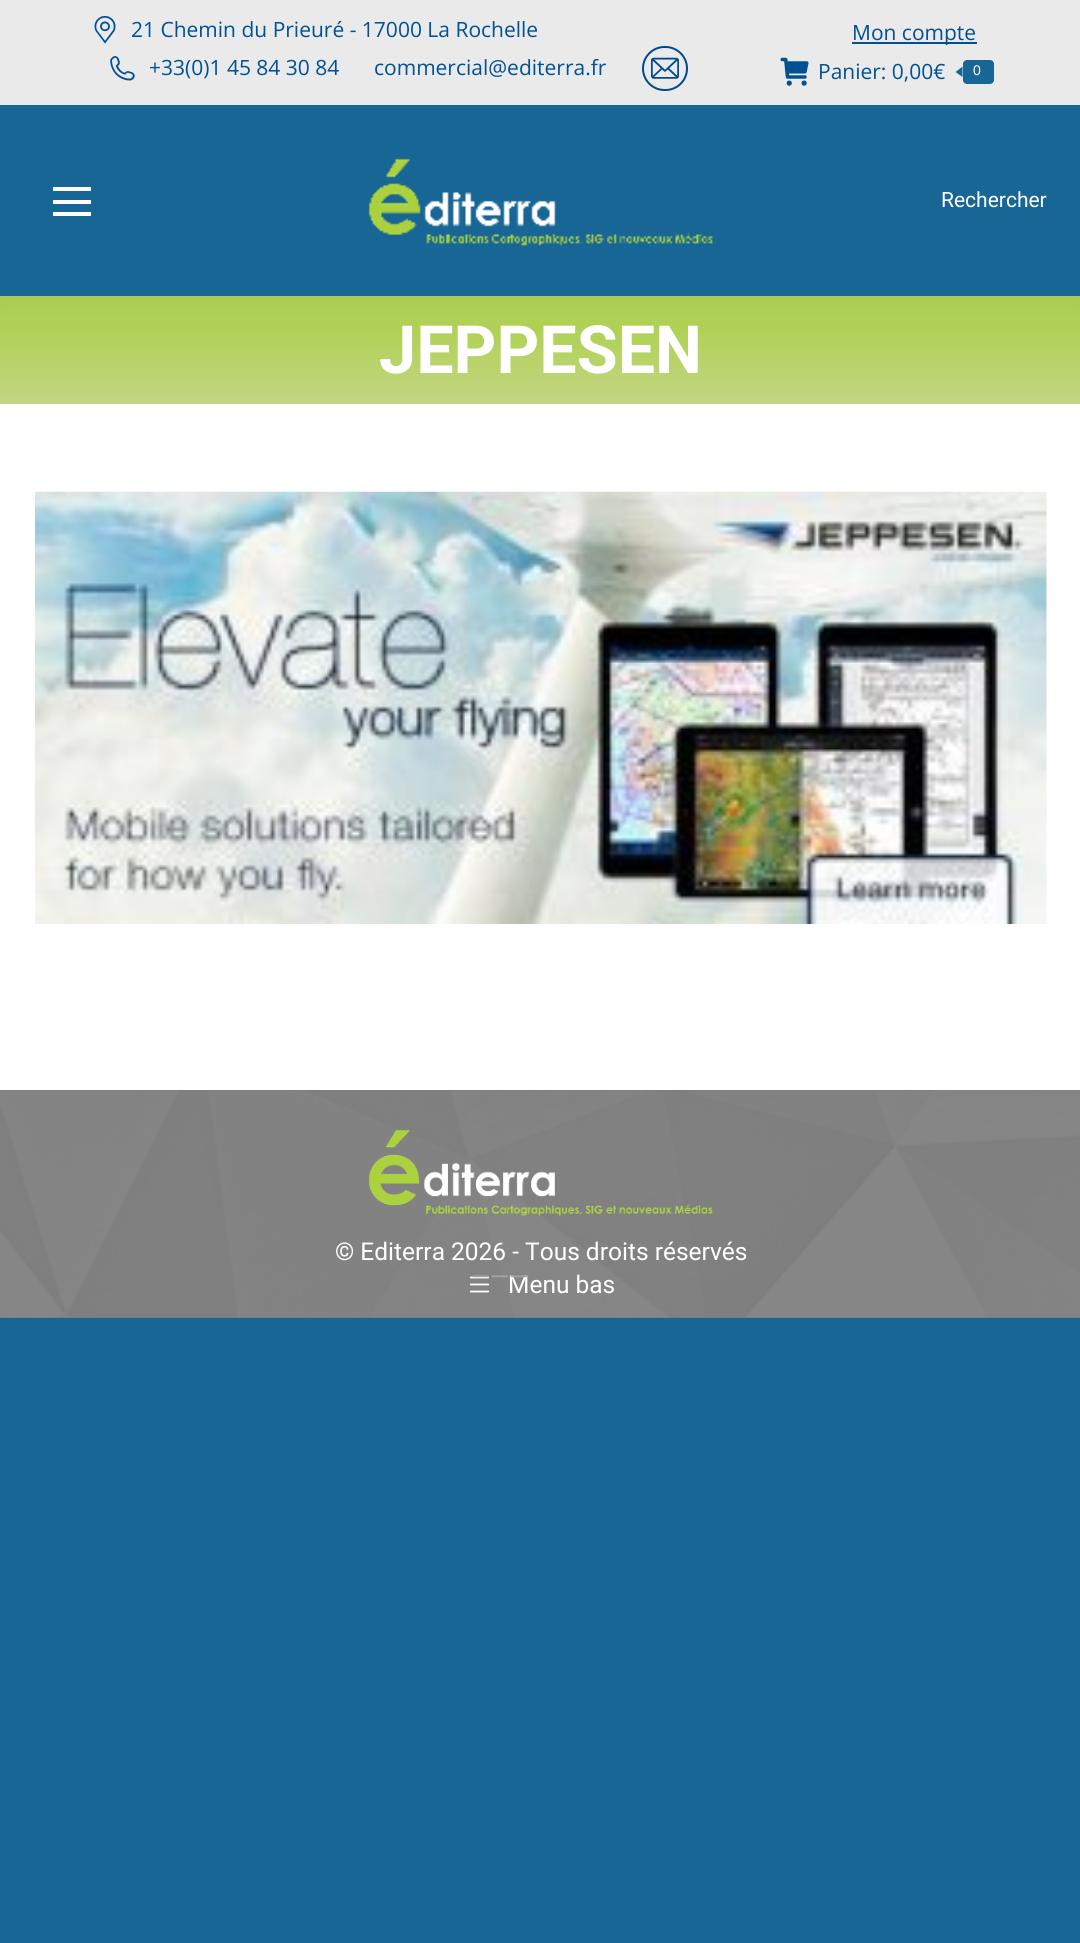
#include <cairo.h>
#include <math.h>
#include <stddef.h>


static void rgb(cairo_t *cr, int r, int g, int b)
{
	cairo_set_source_rgb(cr, r / 255.0, g / 255.0, b / 255.0);
}

static void face(cairo_t *cr, const char *family, double size, int italic, int bold)
{
	cairo_select_font_face(cr, family, italic ? CAIRO_FONT_SLANT_ITALIC : CAIRO_FONT_SLANT_NORMAL,
		bold ? CAIRO_FONT_WEIGHT_BOLD : CAIRO_FONT_WEIGHT_NORMAL);
	cairo_set_font_size(cr, size);
}

static void label(cairo_t *cr, double x, double y, const char *s)
{
	cairo_move_to(cr, x, y);
	cairo_show_text(cr, s);
}

static void rect(cairo_t *cr, double x, double y, double w, double h)
{
	cairo_rectangle(cr, x, y, w, h);
	cairo_fill(cr);
}

static void rrect(cairo_t *cr, double x, double y, double w, double h, double r)
{
	cairo_new_sub_path(cr);
	cairo_arc(cr, x + w - r, y + h - r, r, 0, M_PI / 2);
	cairo_arc(cr, x + r, y + h - r, r, M_PI / 2, M_PI);
	cairo_arc(cr, x + r, y + r, r, M_PI, 1.5 * M_PI);
	cairo_arc(cr, x + w - r, y + r, r, 1.5 * M_PI, 2 * M_PI);
	cairo_close_path(cr);
}

static void soft_shadow(cairo_t *cr, double x, double y, double w, double h, double r, double blur, double alpha)
{
	cairo_push_group_with_content(cr, CAIRO_CONTENT_ALPHA);
	cairo_set_operator(cr, CAIRO_OPERATOR_SOURCE);
	for (int i = 15; i >= -15 && fmin(w, h) + blur * i / 3 > 0; i -= 2) {
		double e = blur * i / 6;
		cairo_set_source_rgba(cr, 0, 0, 0, alpha * erfc((i - 1) / 8.5) / 2);
		rrect(cr, x - e, y - e, w + 2 * e, h + 2 * e, fmax(0, fmin(r + e + blur * .6, fmin(w, h) / 2 + e)));
		cairo_fill(cr);
	}
	cairo_pattern_t *soft = cairo_pop_group(cr);
	cairo_mask(cr, soft);
	cairo_pattern_destroy(soft);
}

static void image(cairo_t *cr, const char *path, double x, double y, double w, double h)
{
	cairo_surface_t *image = cairo_image_surface_create_from_png(path);
	cairo_save(cr);
	cairo_set_source_surface(cr, image, x, y);
	cairo_rectangle(cr, x, y, w, h);
	cairo_fill(cr);
	cairo_restore(cr);
	cairo_surface_destroy(image);
}

static void draw(cairo_t *cr) {
	cairo_pattern_t *gradient;
	rgb(cr, 24, 102, 150);
	cairo_paint(cr);
	rgb(cr, 255, 255, 255);
	rect(cr, 0, 404, 1080, 686);
	gradient = cairo_pattern_create_linear(541, 296, 541, 404);
	cairo_pattern_add_color_stop_rgba(gradient, 0.3, 0.69, 0.82, 0.333, 1);
	cairo_pattern_add_color_stop_rgba(gradient, 1, 0.765, 0.839, 0.518, 1);
	cairo_set_source(cr, gradient);
	cairo_pattern_destroy(gradient);
	rect(cr, 0, 296, 1080, 108);
	rgb(cr, 0, 0, 0);
	soft_shadow(cr, -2, -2, 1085, 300, 0, 13, 0.07);
	rgb(cr, 24, 102, 150);
	rect(cr, 0, 105, 1080, 191);
	rgb(cr, 234, 234, 234);
	rect(cr, 0, 0, 1080, 105);
	image(cr, "image0.png", 94, 15, 22, 29);
	face(cr, "Open Sans", 21, 0, 0);
	rgb(cr, 0, 81, 147);
	label(cr, 131, 37, "21 Chemin du Prieuré - 17000 La Rochelle");
	image(cr, "image1.png", 110, 56, 25, 25);
	label(cr, 149, 75, "+33(0)1 45 84 30 84");
	label(cr, 374, 75, "commercial@editerra.fr");
	rrect(cr, 643, 47, 44, 43, 21.5);
	rgb(cr, 0, 73, 140);
	cairo_stroke(cr);
	image(cr, "image2.png", 651, 57, 28, 22);
	rgb(cr, 0, 81, 147);
	rect(cr, 852, 42, 125, 2);
	label(cr, 852, 40, "Mon compte");
	image(cr, "image3.png", 780, 57, 29, 29);
	label(cr, 818, 79, "Panier: 0,00€");
	rgb(cr, 24, 102, 150);
	rrect(cr, 963, 60, 31, 24, 4);
	cairo_fill(cr);
	cairo_new_path(cr);
	cairo_move_to(cr, 962.5, 66.5);
	cairo_line_to(cr, 962.5, 77);
	cairo_line_to(cr, 955.5, 72);
	cairo_close_path(cr);
	cairo_fill(cr);
	face(cr, "Liberation Sans", 14, 0, 0);
	rgb(cr, 255, 255, 255);
	label(cr, 973, 75, "0");
	rect(cr, 53, 187, 38, 4);
	rect(cr, 53, 200, 38, 4);
	rect(cr, 53, 212, 38, 4);
	image(cr, "image4.png", 368, 158, 345, 88);
	face(cr, "Roboto", 21, 0, 0);
	label(cr, 941, 207, "Rechercher");
	face(cr, "Roboto", 66.5, 0, 1);
	label(cr, 379, 373, "JEPPESEN");
	image(cr, "image5.png", 35, 491, 1012, 433);
	rgb(cr, 117, 117, 117);
	rect(cr, 0, 1090, 1080, 228);
	image(cr, "image6.png", 0, 1090, 1080, 228);
	image(cr, "image7.png", 368, 1129, 345, 87);
	face(cr, "Roboto", 24.5, 0, 0);
	rgb(cr, 255, 255, 255);
	label(cr, 335, 1260, "© Editerra 2026 - Tous droits réservés");
	label(cr, 508, 1293, "Menu bas");
	image(cr, "image8.png", 469, 1276, 21, 17);
	rgb(cr, 162, 162, 162);
	label(cr, 471, 1285, "———");
}

int main(void) {
	cairo_surface_t *surface = cairo_image_surface_create(CAIRO_FORMAT_RGB24, 1080, 1943);
	cairo_t *cr = cairo_create(surface);
	cairo_font_options_t *options = cairo_font_options_create();
	cairo_font_options_set_hint_metrics(options, CAIRO_HINT_METRICS_OFF);
	cairo_font_options_set_hint_style(options, CAIRO_HINT_STYLE_NONE);
	cairo_set_font_options(cr, options);
	cairo_set_miter_limit(cr, 4);
	draw(cr);
	cairo_surface_write_to_png(surface, "render.png");
	cairo_font_options_destroy(options);
	cairo_destroy(cr);
	cairo_surface_destroy(surface);
	return 0;
}
